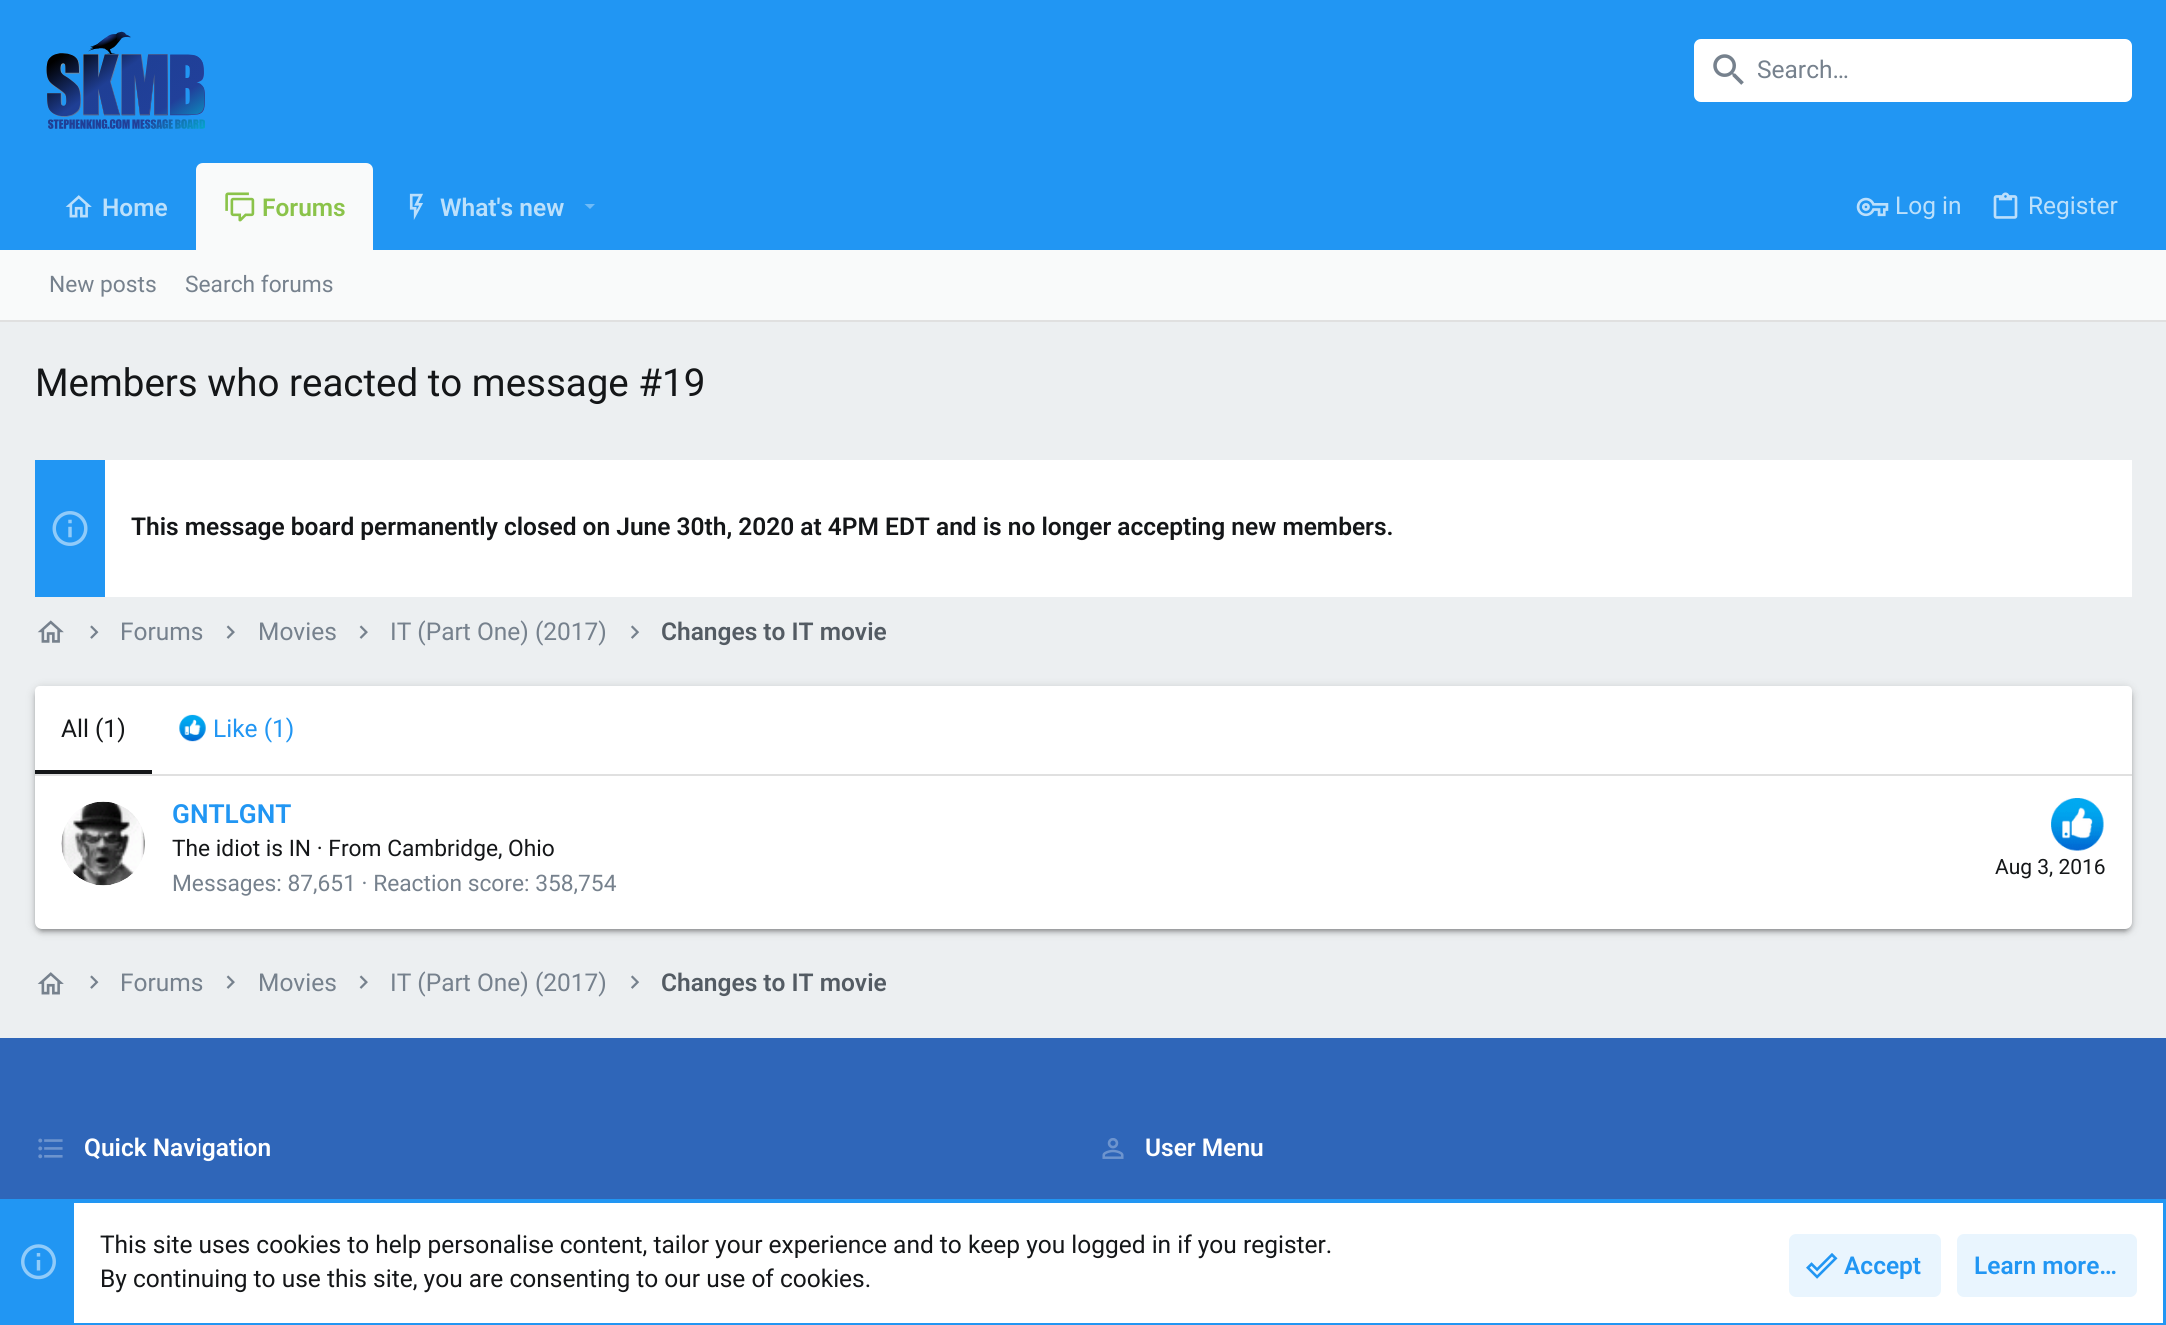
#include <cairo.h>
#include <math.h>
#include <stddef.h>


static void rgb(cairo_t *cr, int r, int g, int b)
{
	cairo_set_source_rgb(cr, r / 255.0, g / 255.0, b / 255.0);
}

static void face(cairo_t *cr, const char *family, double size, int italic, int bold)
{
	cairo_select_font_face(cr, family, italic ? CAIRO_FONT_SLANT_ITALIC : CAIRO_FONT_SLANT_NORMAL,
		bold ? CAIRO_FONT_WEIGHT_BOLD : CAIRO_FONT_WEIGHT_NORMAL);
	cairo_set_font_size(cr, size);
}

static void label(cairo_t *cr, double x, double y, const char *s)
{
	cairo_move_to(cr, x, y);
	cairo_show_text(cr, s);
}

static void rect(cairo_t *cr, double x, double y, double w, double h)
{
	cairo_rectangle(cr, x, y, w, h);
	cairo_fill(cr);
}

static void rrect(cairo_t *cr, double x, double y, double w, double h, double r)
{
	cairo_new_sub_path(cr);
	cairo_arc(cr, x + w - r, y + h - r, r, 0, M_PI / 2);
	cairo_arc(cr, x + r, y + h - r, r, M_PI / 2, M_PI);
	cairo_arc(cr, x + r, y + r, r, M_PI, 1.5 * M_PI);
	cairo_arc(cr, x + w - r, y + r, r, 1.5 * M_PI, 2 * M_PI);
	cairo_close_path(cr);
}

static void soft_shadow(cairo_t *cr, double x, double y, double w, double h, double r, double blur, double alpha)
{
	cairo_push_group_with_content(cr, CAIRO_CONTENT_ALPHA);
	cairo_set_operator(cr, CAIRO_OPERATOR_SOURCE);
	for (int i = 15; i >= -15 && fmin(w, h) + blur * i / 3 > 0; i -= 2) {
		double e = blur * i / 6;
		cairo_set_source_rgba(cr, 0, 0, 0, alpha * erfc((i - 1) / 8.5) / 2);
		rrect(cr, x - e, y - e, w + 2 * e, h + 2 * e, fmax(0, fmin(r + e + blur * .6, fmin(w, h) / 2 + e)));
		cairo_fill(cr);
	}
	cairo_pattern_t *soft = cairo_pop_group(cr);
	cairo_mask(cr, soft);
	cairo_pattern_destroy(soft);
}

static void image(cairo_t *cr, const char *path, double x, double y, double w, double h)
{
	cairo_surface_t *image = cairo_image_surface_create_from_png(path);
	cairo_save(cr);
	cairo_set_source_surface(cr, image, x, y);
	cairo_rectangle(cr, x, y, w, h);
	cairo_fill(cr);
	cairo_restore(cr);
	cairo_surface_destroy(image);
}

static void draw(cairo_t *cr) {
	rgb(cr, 236, 239, 241);
	cairo_paint(cr);
	rgb(cr, 33, 150, 243);
	rect(cr, 0, 0, 2166, 250);
	image(cr, "image0.png", 46, 31, 159, 98);
	rgb(cr, 255, 255, 255);
	rrect(cr, 1694, 39, 438, 63, 7);
	cairo_fill(cr);
	image(cr, "image1.png", 1713, 54, 31, 31);
	face(cr, "Roboto", 24.5, 0, 0);
	rgb(cr, 118, 129, 141);
	label(cr, 1757, 78, "Search…");
	image(cr, "image2.png", 65, 195, 27, 23);
	face(cr, "Roboto SemiBold", 24.5, 0, 0);
	rgb(cr, 188, 224, 251);
	label(cr, 102, 216, "Home");
	rgb(cr, 249, 250, 250);
	cairo_new_path(cr);
	cairo_move_to(cr, 203, 163);
	cairo_line_to(cr, 366, 163);
	cairo_curve_to(cr, 370, 163, 373, 166, 373, 170);
	cairo_line_to(cr, 373, 250);
	cairo_line_to(cr, 196, 250);
	cairo_line_to(cr, 196, 170);
	cairo_curve_to(cr, 196, 166, 199, 163, 203, 163);
	cairo_close_path(cr);
	cairo_fill(cr);
	image(cr, "image3.png", 225, 192, 30, 30);
	rgb(cr, 139, 195, 74);
	label(cr, 262, 216, "Forums");
	image(cr, "image4.png", 409, 193, 14, 27);
	rgb(cr, 188, 224, 251);
	label(cr, 440, 216, "What's new");
	rgb(cr, 111, 187, 247);
	cairo_new_path(cr);
	cairo_move_to(cr, 584.5, 204);
	cairo_line_to(cr, 590, 209);
	cairo_line_to(cr, 595, 204);
	cairo_close_path(cr);
	cairo_fill(cr);
	image(cr, "image5.png", 1856, 197, 33, 20);
	face(cr, "Roboto", 24.5, 0, 0);
	rgb(cr, 188, 224, 251);
	label(cr, 1895, 214, "Log in");
	image(cr, "image6.png", 1993, 192, 25, 27);
	label(cr, 2028, 214, "Register");
	rgb(cr, 249, 250, 250);
	rect(cr, 0, 250, 2166, 70);
	rgb(cr, 224, 224, 224);
	rect(cr, 0, 320, 2166, 2);
	face(cr, "Roboto", 22.75, 0, 0);
	rgb(cr, 118, 129, 141);
	label(cr, 49, 292, "New posts");
	label(cr, 185, 292, "Search forums");
	face(cr, "Roboto", 38.5, 0, 0);
	rgb(cr, 20, 22, 24);
	label(cr, 35, 396, "Members who reacted to message #19");
	rgb(cr, 255, 255, 255);
	rect(cr, 105, 460, 2027, 137);
	rgb(cr, 33, 150, 243);
	rect(cr, 35, 460, 70, 137);
	image(cr, "image7.png", 52, 511, 36, 35);
	face(cr, "Roboto SemiBold", 24.5, 0, 0);
	rgb(cr, 20, 22, 24);
	label(cr, 131, 535, "This message board permanently closed on June 30th, 2020 at 4PM EDT and is no longer accepting new members.");
	image(cr, "image8.png", 37, 620, 27, 23);
	image(cr, "image9.png", 90, 625, 9, 14);
	face(cr, "Roboto", 24.5, 0, 0);
	rgb(cr, 118, 129, 141);
	label(cr, 120, 640, "Forums");
	image(cr, "image10.png", 226, 625, 9, 14);
	label(cr, 258, 640, "Movies");
	image(cr, "image10.png", 359, 625, 9, 14);
	label(cr, 390, 640, "IT (Part One) (2017)");
	image(cr, "image11.png", 631, 625, 9, 14);
	face(cr, "Roboto SemiBold", 24.5, 0, 0);
	rgb(cr, 83, 91, 99);
	label(cr, 661, 640, "Changes to IT movie");
	rgb(cr, 0, 0, 0);
	soft_shadow(cr, 35, 688, 2097, 243, 7, 4.5, 0.2);
	soft_shadow(cr, 39, 695, 2089, 236, 4, 1, 0.12);
	soft_shadow(cr, 35, 690, 2097, 243, 7, 2, 0.14);
	rgb(cr, 255, 255, 255);
	rrect(cr, 35, 686, 2097, 243, 7);
	cairo_fill(cr);
	cairo_new_path(cr);
	cairo_move_to(cr, 40, 686);
	cairo_line_to(cr, 2127, 686);
	cairo_curve_to(cr, 2130, 686, 2132, 688, 2132, 691);
	cairo_line_to(cr, 2132, 775);
	cairo_line_to(cr, 35, 775);
	cairo_line_to(cr, 35, 691);
	cairo_curve_to(cr, 35, 688, 37, 686, 40, 686);
	cairo_close_path(cr);
	cairo_fill(cr);
	rgb(cr, 224, 224, 224);
	rect(cr, 35, 774, 2097, 2);
	rgb(cr, 20, 22, 24);
	rect(cr, 35, 770, 117, 4);
	face(cr, "Roboto", 24.5, 0, 0);
	label(cr, 61, 737, "All (1)");
	image(cr, "image12.png", 179, 714, 27, 28);
	rgb(cr, 33, 150, 243);
	label(cr, 213, 737, "Like (1)");
	image(cr, "image13.png", 61, 801, 84, 85);
	face(cr, "Roboto SemiBold", 26.25, 0, 0);
	label(cr, 172, 823, "GNTLGNT");
	face(cr, "Roboto", 22.75, 0, 0);
	rgb(cr, 20, 22, 24);
	label(cr, 172, 856, "The idiot is IN · From Cambridge, Ohio");
	image(cr, "image14.png", 2051, 798, 53, 53);
	face(cr, "Roboto", 21, 0, 0);
	label(cr, 1995, 874, "Aug 3, 2016");
	face(cr, "Roboto", 22.75, 0, 0);
	rgb(cr, 118, 129, 141);
	label(cr, 172, 891, "Messages: 87,651 · Reaction score: 358,754");
	image(cr, "image15.png", 37, 972, 27, 23);
	image(cr, "image9.png", 90, 975, 9, 14);
	face(cr, "Roboto", 24.5, 0, 0);
	label(cr, 120, 991, "Forums");
	image(cr, "image10.png", 226, 975, 9, 14);
	label(cr, 258, 991, "Movies");
	image(cr, "image10.png", 359, 975, 9, 14);
	label(cr, 390, 991, "IT (Part One) (2017)");
	image(cr, "image11.png", 631, 975, 9, 14);
	face(cr, "Roboto SemiBold", 24.5, 0, 0);
	rgb(cr, 83, 91, 99);
	label(cr, 661, 991, "Changes to IT movie");
	rgb(cr, 47, 102, 185);
	rect(cr, 0, 1038, 2166, 161);
	image(cr, "image16.png", 38, 1138, 25, 21);
	rgb(cr, 255, 255, 255);
	label(cr, 84, 1156, "Quick Navigation");
	image(cr, "image17.png", 1102, 1138, 22, 21);
	label(cr, 1145, 1156, "User Menu");
	rect(cr, 74, 1203, 2089, 120);
	cairo_rectangle(cr, 2, 1201, 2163, 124);
	rgb(cr, 33, 150, 243);
	cairo_set_line_width(cr, 4);
	cairo_stroke(cr);
	rect(cr, 4, 1203, 70, 120);
	image(cr, "image18.png", 21, 1244, 35, 36);
	face(cr, "Roboto", 24.5, 0, 0);
	rgb(cr, 20, 22, 24);
	label(cr, 100, 1253, "This site uses cookies to help personalise content, tailor your experience and to keep you logged in if you register.");
	label(cr, 100, 1287, "By continuing to use this site, you are consenting to our use of cookies.");
	rgb(cr, 233, 245, 254);
	rrect(cr, 1789, 1234, 152, 63, 7);
	cairo_fill(cr);
	image(cr, "image19.png", 1806, 1253, 32, 26);
	face(cr, "Roboto SemiBold", 24.5, 0, 0);
	rgb(cr, 33, 150, 243);
	label(cr, 1844, 1274, "Accept");
	rgb(cr, 233, 245, 254);
	rrect(cr, 1957, 1234, 180, 63, 7);
	cairo_fill(cr);
	rgb(cr, 33, 150, 243);
	label(cr, 1974, 1274, "Learn more…");
}

int main(void) {
	cairo_surface_t *surface = cairo_image_surface_create(CAIRO_FORMAT_RGB24, 2166, 1325);
	cairo_t *cr = cairo_create(surface);
	cairo_font_options_t *options = cairo_font_options_create();
	cairo_font_options_set_hint_metrics(options, CAIRO_HINT_METRICS_OFF);
	cairo_font_options_set_hint_style(options, CAIRO_HINT_STYLE_NONE);
	cairo_set_font_options(cr, options);
	cairo_set_miter_limit(cr, 4);
	draw(cr);
	cairo_surface_write_to_png(surface, "render.png");
	cairo_font_options_destroy(options);
	cairo_destroy(cr);
	cairo_surface_destroy(surface);
	return 0;
}
